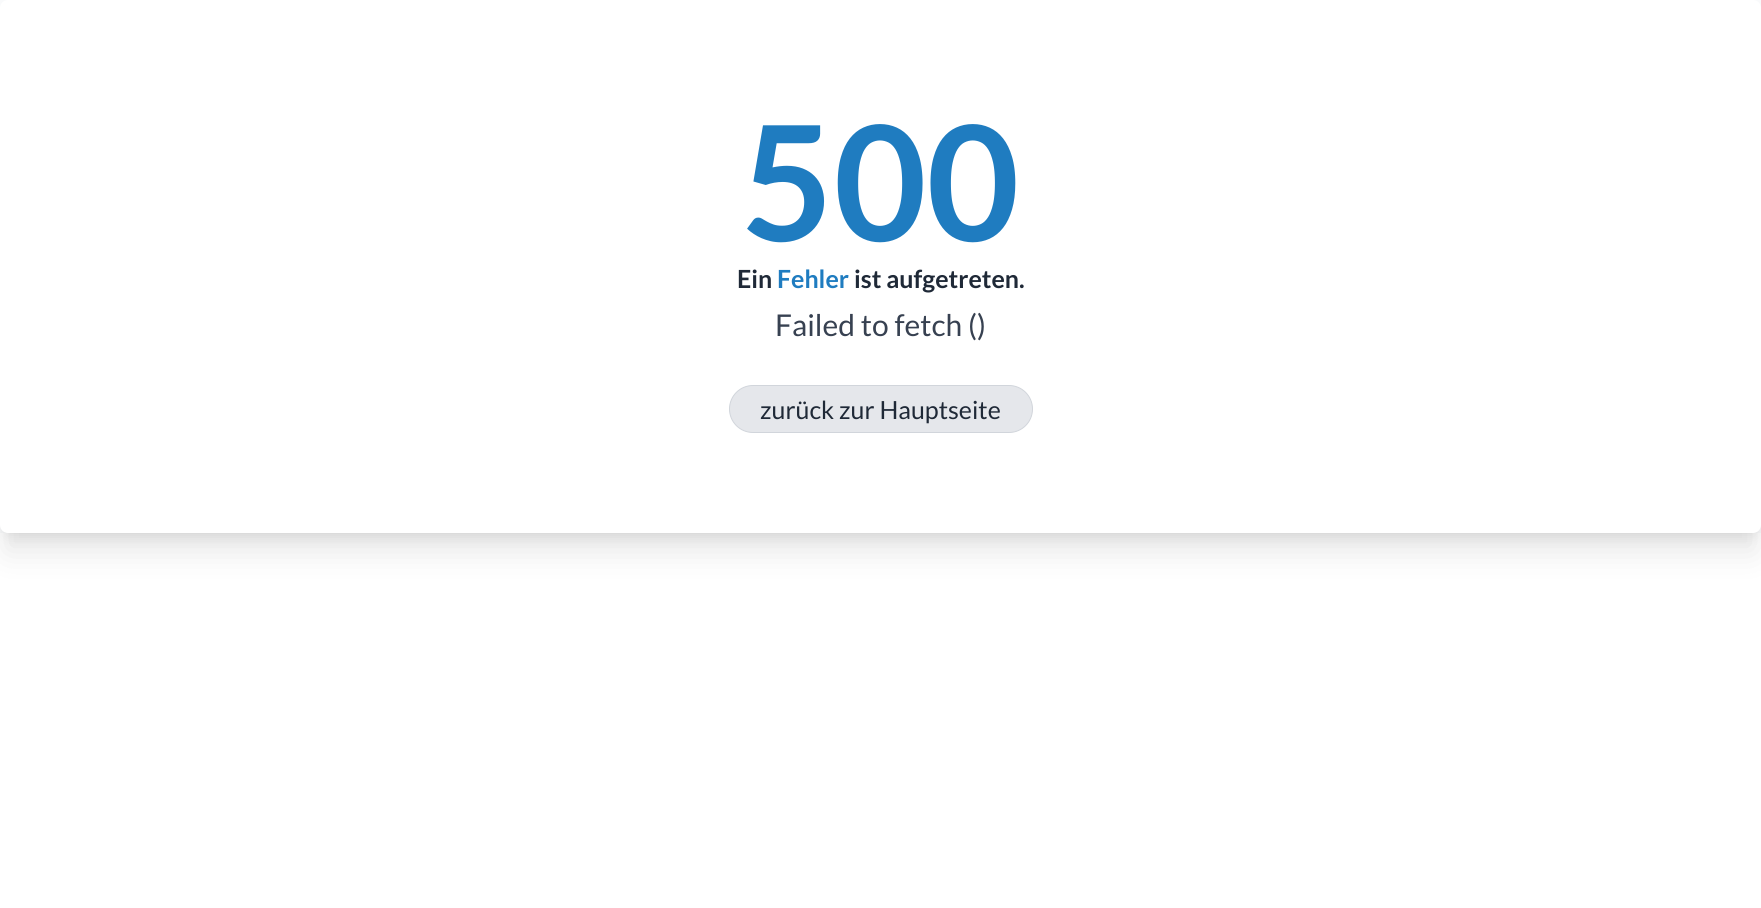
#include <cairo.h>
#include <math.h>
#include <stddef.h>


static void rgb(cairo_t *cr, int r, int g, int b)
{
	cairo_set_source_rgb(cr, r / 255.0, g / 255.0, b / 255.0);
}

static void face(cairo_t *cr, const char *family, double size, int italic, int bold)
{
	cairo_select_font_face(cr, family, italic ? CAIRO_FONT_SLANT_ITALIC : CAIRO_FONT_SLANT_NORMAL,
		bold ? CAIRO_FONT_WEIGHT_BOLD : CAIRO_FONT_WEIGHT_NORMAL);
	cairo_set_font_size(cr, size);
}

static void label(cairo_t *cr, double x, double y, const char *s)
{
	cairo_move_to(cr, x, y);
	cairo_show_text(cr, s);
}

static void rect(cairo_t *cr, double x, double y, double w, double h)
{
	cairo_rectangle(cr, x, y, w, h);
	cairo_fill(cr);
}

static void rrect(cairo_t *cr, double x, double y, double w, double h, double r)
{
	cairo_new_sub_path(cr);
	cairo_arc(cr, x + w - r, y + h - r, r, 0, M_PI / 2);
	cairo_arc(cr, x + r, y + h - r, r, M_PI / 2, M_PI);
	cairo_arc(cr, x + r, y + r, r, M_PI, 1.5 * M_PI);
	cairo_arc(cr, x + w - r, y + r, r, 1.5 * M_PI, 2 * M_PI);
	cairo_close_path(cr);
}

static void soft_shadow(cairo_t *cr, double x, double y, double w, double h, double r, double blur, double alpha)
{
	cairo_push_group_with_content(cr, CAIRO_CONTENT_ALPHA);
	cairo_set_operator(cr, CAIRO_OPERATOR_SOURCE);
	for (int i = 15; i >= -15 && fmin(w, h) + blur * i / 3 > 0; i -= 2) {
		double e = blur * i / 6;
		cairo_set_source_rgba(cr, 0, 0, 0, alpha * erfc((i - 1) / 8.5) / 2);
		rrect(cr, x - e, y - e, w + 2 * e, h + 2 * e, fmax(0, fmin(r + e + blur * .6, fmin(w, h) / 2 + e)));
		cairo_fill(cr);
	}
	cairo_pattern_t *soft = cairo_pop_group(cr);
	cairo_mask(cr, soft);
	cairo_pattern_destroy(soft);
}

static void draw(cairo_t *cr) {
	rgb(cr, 255, 255, 255);
	cairo_paint(cr);
	rgb(cr, 249, 250, 251);
	rect(cr, 0, 0, 1761, 533);
	rgb(cr, 0, 0, 0);
	soft_shadow(cr, 8, 18, 1746, 517, 0, 6, 0.1);
	soft_shadow(cr, 6, 31, 1749, 520, 1, 15.5, 0.1);
	rgb(cr, 255, 255, 255);
	rrect(cr, 0, 0, 1761, 533, 8);
	cairo_fill(cr);
	face(cr, "Lato", 160, 0, 1);
	rgb(cr, 31, 124, 192);
	label(cr, 741, 241, "500");
	face(cr, "Lato", 25, 0, 1);
	rgb(cr, 31, 41, 55);
	label(cr, 737, 288, "Ein");
	rgb(cr, 31, 124, 192);
	label(cr, 777, 288, "Fehler");
	rgb(cr, 31, 41, 55);
	label(cr, 854, 288, "ist aufgetreten.");
	face(cr, "Lato", 30, 0, 0);
	rgb(cr, 55, 65, 81);
	label(cr, 775, 336, "Failed to fetch ()");
	rgb(cr, 229, 231, 235);
	rrect(cr, 729.5, 385.5, 303, 47, 23.5);
	cairo_fill_preserve(cr);
	rgb(cr, 209, 213, 219);
	cairo_set_line_width(cr, 1);
	cairo_stroke(cr);
	face(cr, "Lato", 25, 0, 0);
	rgb(cr, 31, 41, 55);
	label(cr, 760, 419, "zurück zur Hauptseite");
}

int main(void) {
	cairo_surface_t *surface = cairo_image_surface_create(CAIRO_FORMAT_RGB24, 1761, 908);
	cairo_t *cr = cairo_create(surface);
	cairo_font_options_t *options = cairo_font_options_create();
	cairo_font_options_set_hint_metrics(options, CAIRO_HINT_METRICS_OFF);
	cairo_font_options_set_hint_style(options, CAIRO_HINT_STYLE_NONE);
	cairo_set_font_options(cr, options);
	cairo_set_miter_limit(cr, 4);
	draw(cr);
	cairo_surface_write_to_png(surface, "render.png");
	cairo_font_options_destroy(options);
	cairo_destroy(cr);
	cairo_surface_destroy(surface);
	return 0;
}
